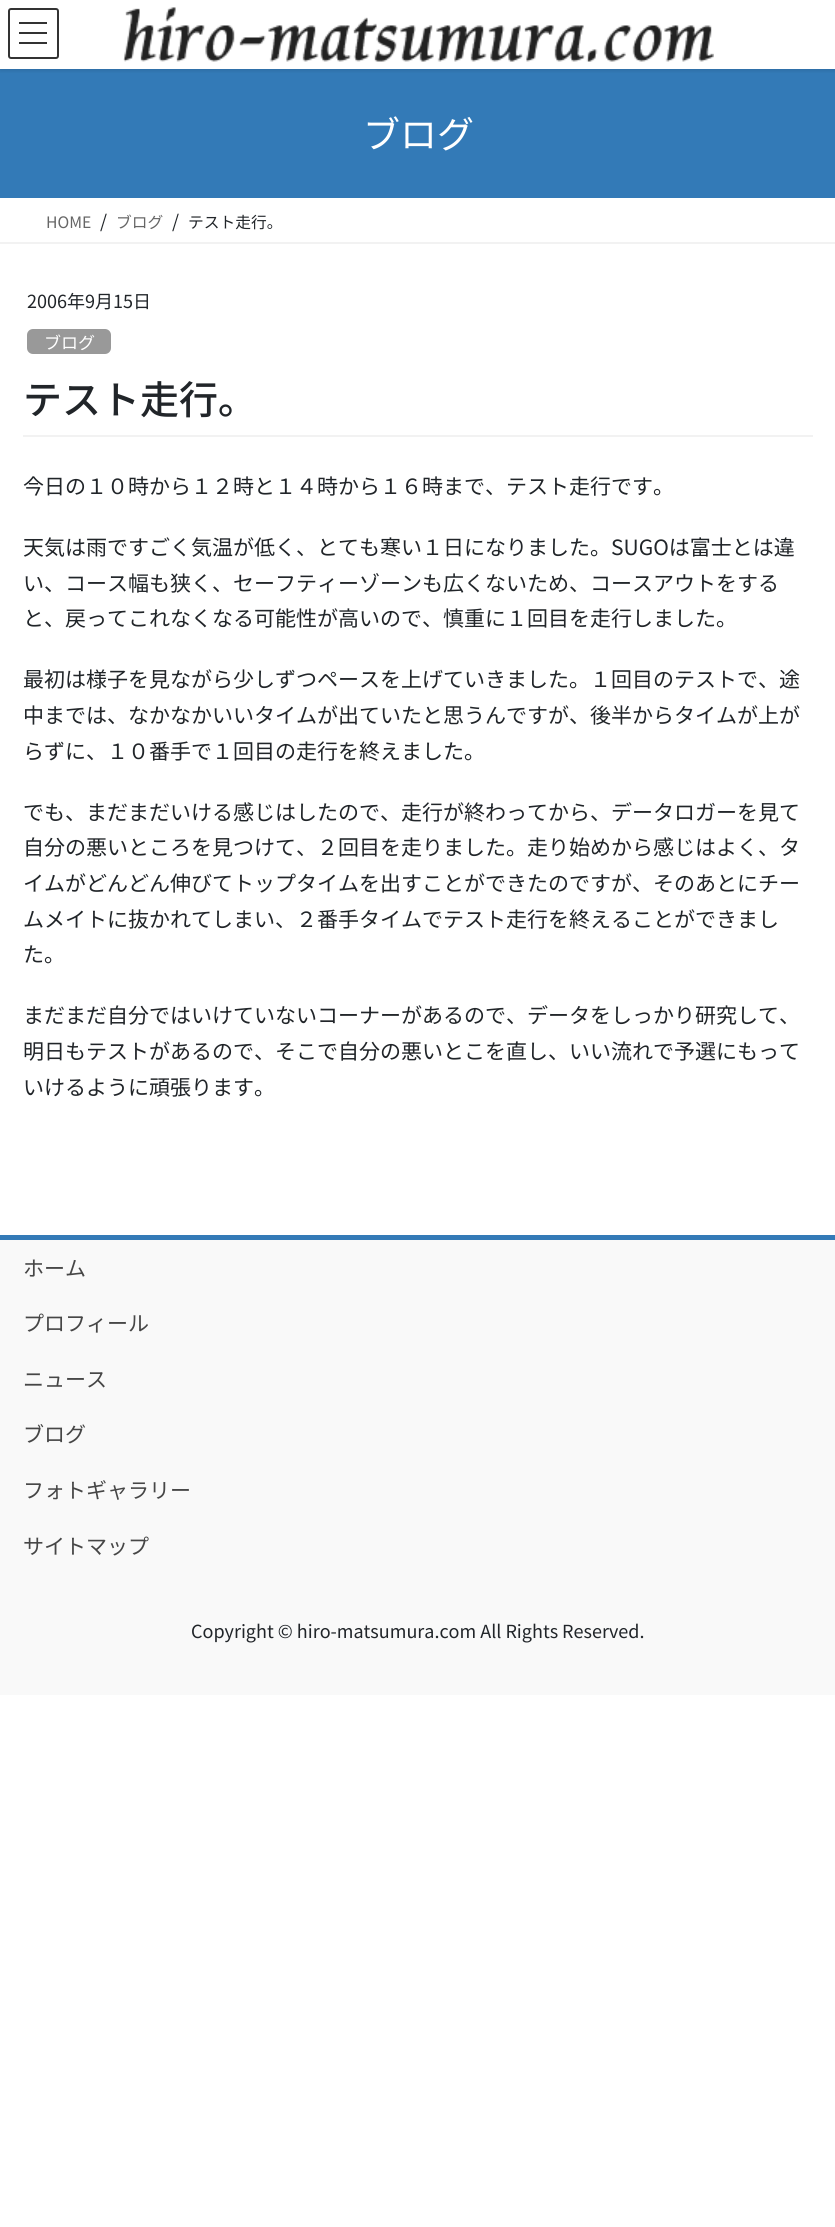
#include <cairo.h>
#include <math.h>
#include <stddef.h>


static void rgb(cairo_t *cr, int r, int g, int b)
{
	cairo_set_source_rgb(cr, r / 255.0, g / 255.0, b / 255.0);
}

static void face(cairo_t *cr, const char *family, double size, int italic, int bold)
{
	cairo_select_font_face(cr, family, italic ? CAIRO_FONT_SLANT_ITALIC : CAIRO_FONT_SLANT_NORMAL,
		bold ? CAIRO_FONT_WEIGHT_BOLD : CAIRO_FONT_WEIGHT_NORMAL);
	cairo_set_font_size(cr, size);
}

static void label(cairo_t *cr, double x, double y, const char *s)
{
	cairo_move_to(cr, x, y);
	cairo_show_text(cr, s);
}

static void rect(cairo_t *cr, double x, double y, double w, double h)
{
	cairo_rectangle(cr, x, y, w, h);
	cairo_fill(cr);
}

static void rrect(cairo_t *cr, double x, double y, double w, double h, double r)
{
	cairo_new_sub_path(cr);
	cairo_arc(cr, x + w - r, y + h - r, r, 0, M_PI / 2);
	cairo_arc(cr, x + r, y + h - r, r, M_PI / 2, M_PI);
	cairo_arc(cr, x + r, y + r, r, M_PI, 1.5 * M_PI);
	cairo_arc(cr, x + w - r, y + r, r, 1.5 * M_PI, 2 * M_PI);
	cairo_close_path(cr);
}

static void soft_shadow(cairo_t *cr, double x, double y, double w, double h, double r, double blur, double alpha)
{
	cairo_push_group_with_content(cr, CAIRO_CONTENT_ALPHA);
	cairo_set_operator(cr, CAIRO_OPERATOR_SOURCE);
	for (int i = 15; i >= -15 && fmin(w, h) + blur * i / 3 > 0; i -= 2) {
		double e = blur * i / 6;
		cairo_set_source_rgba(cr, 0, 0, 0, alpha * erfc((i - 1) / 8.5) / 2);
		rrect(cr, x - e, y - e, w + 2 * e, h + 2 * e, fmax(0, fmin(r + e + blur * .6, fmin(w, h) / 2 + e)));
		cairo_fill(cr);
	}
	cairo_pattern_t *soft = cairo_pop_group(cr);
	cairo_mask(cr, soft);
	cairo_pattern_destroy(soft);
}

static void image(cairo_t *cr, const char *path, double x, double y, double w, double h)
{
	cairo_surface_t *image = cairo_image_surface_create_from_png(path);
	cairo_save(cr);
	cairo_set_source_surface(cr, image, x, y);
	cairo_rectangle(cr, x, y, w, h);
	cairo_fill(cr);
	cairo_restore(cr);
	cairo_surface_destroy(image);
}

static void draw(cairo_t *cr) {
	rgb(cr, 255, 255, 255);
	cairo_paint(cr);
	rgb(cr, 51, 122, 183);
	rect(cr, 0, 69, 835, 129);
	cairo_save(cr);
	cairo_rectangle(cr, 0, 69, 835, 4);
	cairo_clip(cr);
	rgb(cr, 0, 0, 0);
	soft_shadow(cr, 0, 2, 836, 69, 0, 2, 0.1);
	cairo_restore(cr);
	image(cr, "image0.png", 123, 7, 591, 55);
	rgb(cr, 51, 51, 51);
	rect(cr, 19, 22, 28, 2);
	rect(cr, 19, 32, 28, 2);
	rect(cr, 19, 42, 28, 2);
	rrect(cr, 9, 9, 49, 49, 2);
	cairo_stroke(cr);
	face(cr, "Noto Sans JP", 37, 0, 0);
	rgb(cr, 255, 255, 255);
	label(cr, 363, 148, "ブログ");
	rgb(cr, 242, 242, 242);
	rect(cr, 0, 242, 835, 2);
	face(cr, "Noto Sans JP", 15.75, 0, 0);
	rgb(cr, 102, 102, 102);
	label(cr, 46, 228, "HOME");
	face(cr, "Noto Sans JP", 18, 0, 0);
	rgb(cr, 33, 37, 41);
	label(cr, 100, 228, "/");
	face(cr, "Noto Sans JP", 15.75, 0, 0);
	rgb(cr, 102, 102, 102);
	label(cr, 116, 228, "ブログ");
	face(cr, "Noto Sans JP", 18, 0, 0);
	rgb(cr, 33, 37, 41);
	label(cr, 172, 228, "/");
	face(cr, "Noto Sans JP", 15.75, 0, 0);
	label(cr, 188, 228, "テスト走行。");
	rgb(cr, 242, 242, 242);
	rect(cr, 23, 435, 790, 2);
	face(cr, "Noto Sans JP", 18, 0, 0);
	rgb(cr, 33, 37, 41);
	label(cr, 27, 308, "2006年9月15日");
	rgb(cr, 153, 153, 153);
	rrect(cr, 27, 329, 84, 25, 6);
	cairo_fill(cr);
	face(cr, "Noto Sans JP", 17, 0, 0);
	rgb(cr, 255, 255, 255);
	label(cr, 44, 349, "ブログ");
	face(cr, "Noto Sans JP Medium", 39, 0, 0);
	rgb(cr, 33, 37, 41);
	label(cr, 23, 414, "テスト走行。");
	face(cr, "Noto Sans JP", 21, 0, 0);
	label(cr, 23, 494, "今日の１０時から１２時と１４時から１６時まで、テスト走行です。");
	label(cr, 23, 555, "天気は雨ですごく気温が低く、とても寒い１日になりました。SUGOは富士とは違");
	label(cr, 23, 591, "い、コース幅も狭く、セーフティーゾーンも広くないため、コースアウトをする");
	label(cr, 23, 626, "と、戻ってこれなくなる可能性が高いので、慎重に１回目を走行しました。");
	label(cr, 23, 687, "最初は様子を見ながら少しずつペースを上げていきました。１回目のテストで、途");
	label(cr, 23, 723, "中までは、なかなかいいタイムが出ていたと思うんですが、後半からタイムが上が");
	label(cr, 23, 759, "らずに、１０番手で１回目の走行を終えました。");
	label(cr, 23, 820, "でも、まだまだいける感じはしたので、走行が終わってから、データロガーを見て");
	label(cr, 23, 855, "自分の悪いところを見つけて、２回目を走りました。走り始めから感じはよく、タ");
	label(cr, 23, 891, "イムがどんどん伸びてトップタイムを出すことができたのですが、そのあとにチー");
	label(cr, 23, 927, "ムメイトに抜かれてしまい、２番手タイムでテスト走行を終えることができまし");
	label(cr, 23, 962, "た。");
	label(cr, 23, 1023, "まだまだ自分ではいけていないコーナーがあるので、データをしっかり研究して、");
	label(cr, 23, 1059, "明日もテストがあるので、そこで自分の悪いとこを直し、いい流れで予選にもって");
	label(cr, 23, 1095, "いけるように頑張ります。");
	rgb(cr, 249, 249, 249);
	rect(cr, 0, 1240, 835, 455);
	rgb(cr, 51, 122, 183);
	rect(cr, 0, 1235, 835, 5);
	rgb(cr, 70, 70, 70);
	label(cr, 23, 1276, "ホーム");
	label(cr, 23, 1331, "プロフィール");
	label(cr, 23, 1387, "ニュース");
	label(cr, 23, 1442, "ブログ");
	label(cr, 23, 1498, "フォトギャラリー");
	label(cr, 23, 1554, "サイトマップ");
	face(cr, "Noto Sans JP", 18, 0, 0);
	rgb(cr, 33, 37, 41);
	label(cr, 191, 1638, "Copyright © hiro-matsumura.com All Rights Reserved.");
}

int main(void) {
	cairo_surface_t *surface = cairo_image_surface_create(CAIRO_FORMAT_RGB24, 835, 2227);
	cairo_t *cr = cairo_create(surface);
	cairo_font_options_t *options = cairo_font_options_create();
	cairo_font_options_set_hint_metrics(options, CAIRO_HINT_METRICS_OFF);
	cairo_font_options_set_hint_style(options, CAIRO_HINT_STYLE_NONE);
	cairo_set_font_options(cr, options);
	cairo_set_miter_limit(cr, 4);
	draw(cr);
	cairo_surface_write_to_png(surface, "render.png");
	cairo_font_options_destroy(options);
	cairo_destroy(cr);
	cairo_surface_destroy(surface);
	return 0;
}
